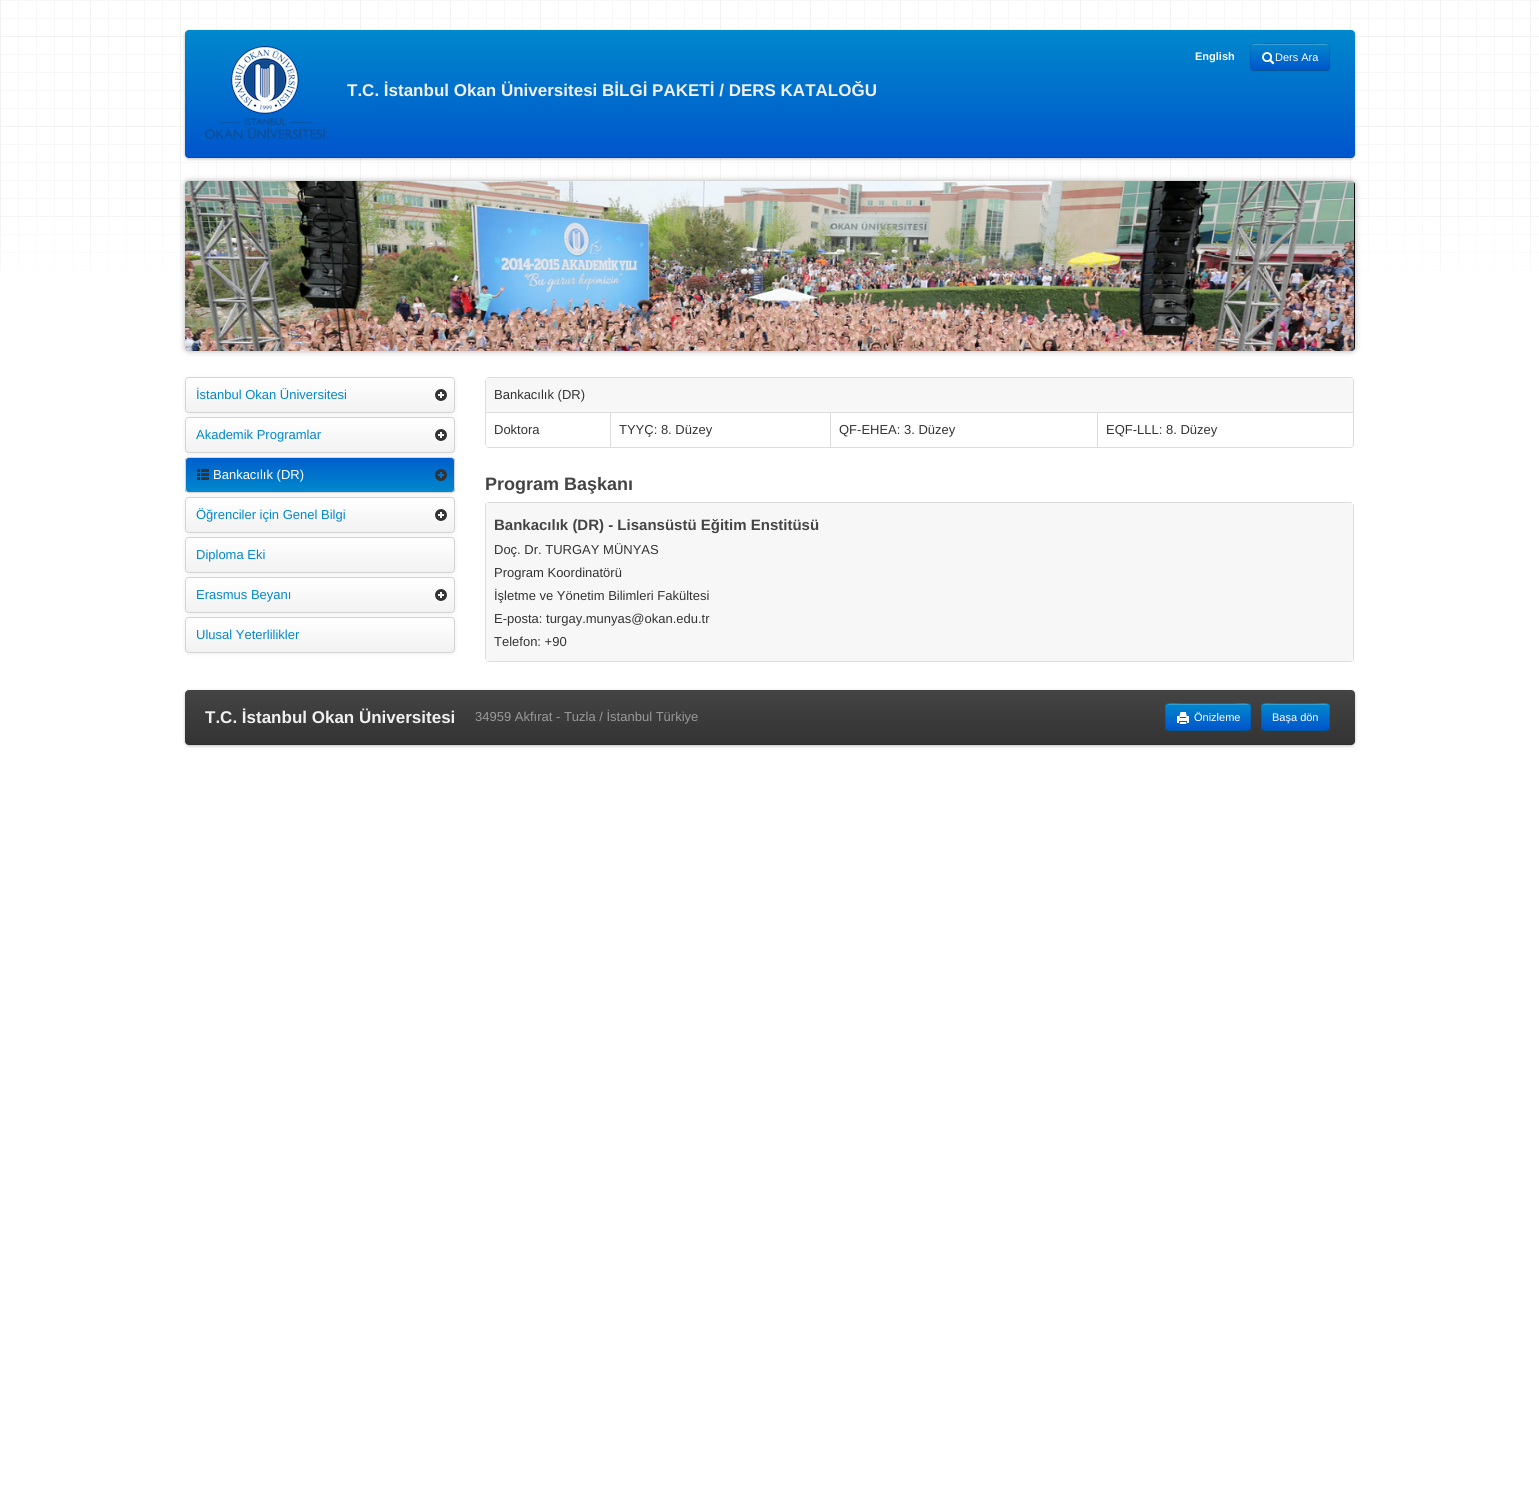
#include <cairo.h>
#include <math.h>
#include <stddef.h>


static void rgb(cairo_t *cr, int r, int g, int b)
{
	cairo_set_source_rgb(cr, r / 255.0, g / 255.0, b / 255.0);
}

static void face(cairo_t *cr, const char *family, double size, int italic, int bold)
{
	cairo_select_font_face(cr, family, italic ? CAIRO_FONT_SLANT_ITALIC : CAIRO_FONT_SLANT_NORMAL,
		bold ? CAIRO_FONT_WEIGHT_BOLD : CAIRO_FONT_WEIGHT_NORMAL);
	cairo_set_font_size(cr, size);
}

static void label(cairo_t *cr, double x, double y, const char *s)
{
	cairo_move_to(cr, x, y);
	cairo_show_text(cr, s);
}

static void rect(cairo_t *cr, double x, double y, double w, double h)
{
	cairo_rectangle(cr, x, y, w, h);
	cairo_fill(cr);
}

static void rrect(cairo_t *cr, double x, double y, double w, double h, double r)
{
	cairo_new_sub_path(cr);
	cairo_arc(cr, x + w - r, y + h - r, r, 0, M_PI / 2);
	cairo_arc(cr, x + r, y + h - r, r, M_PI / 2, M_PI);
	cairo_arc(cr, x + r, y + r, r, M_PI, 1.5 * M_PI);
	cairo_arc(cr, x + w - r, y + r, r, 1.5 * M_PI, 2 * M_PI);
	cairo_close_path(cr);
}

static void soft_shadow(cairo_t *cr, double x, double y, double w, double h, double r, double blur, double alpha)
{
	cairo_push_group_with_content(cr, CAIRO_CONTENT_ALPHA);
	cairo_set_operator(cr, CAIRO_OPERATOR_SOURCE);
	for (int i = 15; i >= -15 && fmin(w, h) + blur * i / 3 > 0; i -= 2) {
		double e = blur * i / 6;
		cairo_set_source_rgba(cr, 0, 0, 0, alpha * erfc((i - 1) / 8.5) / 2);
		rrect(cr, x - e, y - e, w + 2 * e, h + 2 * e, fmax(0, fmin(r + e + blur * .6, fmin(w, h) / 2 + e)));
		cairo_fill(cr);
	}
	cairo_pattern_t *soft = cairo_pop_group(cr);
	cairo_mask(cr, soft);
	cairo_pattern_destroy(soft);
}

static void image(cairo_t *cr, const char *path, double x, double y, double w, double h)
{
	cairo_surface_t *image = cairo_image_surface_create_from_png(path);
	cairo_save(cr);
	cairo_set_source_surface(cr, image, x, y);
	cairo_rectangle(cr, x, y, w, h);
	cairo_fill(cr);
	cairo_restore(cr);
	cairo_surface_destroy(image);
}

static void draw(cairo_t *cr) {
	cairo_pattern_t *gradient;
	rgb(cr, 255, 255, 255);
	cairo_paint(cr);
	image(cr, "image0.png", 0, 0, 1539, 273);
	rgb(cr, 0, 0, 0);
	soft_shadow(cr, 185, 31, 1170, 128, 4, 1.5, 0.25);
	gradient = cairo_pattern_create_linear(770, 30, 770, 158);
	cairo_pattern_add_color_stop_rgba(gradient, 0, 0, 0.533, 0.8, 1);
	cairo_pattern_add_color_stop_rgba(gradient, 1, 0, 0.333, 0.8, 1);
	cairo_set_source(cr, gradient);
	cairo_pattern_destroy(gradient);
	rrect(cr, 185, 30, 1170, 128, 4);
	cairo_fill(cr);
	cairo_set_source_rgba(cr, 0, 0, 0, 0.1);
	cairo_new_path(cr);
	cairo_move_to(cr, 185, 153);
	cairo_curve_to(cr, 185, 156, 186, 158, 189, 158);
	cairo_line_to(cr, 1351, 158);
	cairo_curve_to(cr, 1354, 158, 1355, 156, 1355, 153);
	cairo_curve_to(cr, 1355, 155, 1353, 157, 1351, 157);
	cairo_line_to(cr, 189, 157);
	cairo_curve_to(cr, 187, 157, 185, 155, 185, 153);
	cairo_close_path(cr);
	cairo_fill(cr);
	face(cr, "Liberation Sans", 11, 0, 1);
	rgb(cr, 255, 255, 255);
	label(cr, 1195, 60, "English");
	rgb(cr, 0, 0, 0);
	soft_shadow(cr, 1250, 44, 80, 28, 4, 1, 0.05);
	rgb(cr, 0, 116, 204);
	rrect(cr, 1250, 43, 80, 28, 4);
	cairo_fill(cr);
	cairo_save(cr);
	rrect(cr, 1250, 43, 80, 28, 4);
	cairo_clip(cr);
	gradient = cairo_pattern_create_linear(1290, 44, 1290, 70);
	cairo_pattern_add_color_stop_rgba(gradient, 0, 0, 0.533, 0.8, 1);
	cairo_pattern_add_color_stop_rgba(gradient, 1, 0, 0.333, 0.8, 1);
	cairo_set_source(cr, gradient);
	cairo_pattern_destroy(gradient);
	rect(cr, 1250, 44, 80, 26);
	cairo_restore(cr);
	cairo_set_source_rgba(cr, 1, 1, 1, 0.2);
	cairo_new_path(cr);
	cairo_move_to(cr, 1254, 45);
	cairo_line_to(cr, 1326, 45);
	cairo_curve_to(cr, 1328, 45, 1329, 46, 1329, 48);
	cairo_curve_to(cr, 1329, 41, 1318, 44, 1314, 44);
	cairo_line_to(cr, 1266, 44);
	cairo_curve_to(cr, 1262, 44, 1251, 41, 1251, 48);
	cairo_curve_to(cr, 1251, 46, 1252, 45, 1254, 45);
	cairo_close_path(cr);
	cairo_fill(cr);
	cairo_new_path(cr);
	cairo_move_to(cr, 1328.5, 69.5);
	cairo_curve_to(cr, 1328, 70, 1327, 70.5, 1326, 70.5);
	cairo_line_to(cr, 1254, 70.5);
	cairo_curve_to(cr, 1253, 70.5, 1252, 70, 1251.5, 69.5);
	rgb(cr, 0, 87, 153);
	cairo_set_line_width(cr, 1);
	cairo_stroke(cr);
	cairo_new_path(cr);
	cairo_move_to(cr, 1251.5, 69.5);
	cairo_curve_to(cr, 1249.5, 67.5, 1250.5, 63, 1250.5, 60.5);
	cairo_curve_to(cr, 1250.5, 41.5, 1247, 43.5, 1266, 43.5);
	cairo_line_to(cr, 1314, 43.5);
	cairo_curve_to(cr, 1331.5, 43.5, 1329.5, 41, 1329.5, 57);
	cairo_curve_to(cr, 1329.5, 59.5, 1330.5, 67, 1328.5, 69.5);
	cairo_set_source_rgba(cr, 0, 0, 0, 0.1);
	cairo_stroke(cr);
	image(cr, "image1.png", 1262, 52, 13, 13);
	face(cr, "Liberation Sans", 11, 0, 0);
	rgb(cr, 255, 255, 255);
	label(cr, 1275, 61, "Ders Ara");
	image(cr, "image2.png", 205, 46, 120, 93);
	face(cr, "Liberation Sans", 17, 0, 1);
	rgb(cr, 240, 240, 240);
	label(cr, 347, 96, "T.C. İstanbul Okan Üniversitesi BİLGİ PAKETİ / DERS KATALOĞU");
	rgb(cr, 176, 176, 176);
	soft_shadow(cr, 185, 181, 1170, 170, 4, 3, 1);
	image(cr, "image3.png", 185, 181, 1170, 170);
	rgb(cr, 0, 0, 0);
	soft_shadow(cr, 185, 378, 270, 36, 4, 2, 0.07);
	cairo_save(cr);
	rrect(cr, 185, 377, 270, 36, 4);
	cairo_clip(cr);
	gradient = cairo_pattern_create_linear(320, 378, 320, 412);
	cairo_pattern_add_color_stop_rgba(gradient, 0, 1, 1, 1, 1);
	cairo_pattern_add_color_stop_rgba(gradient, 1, 0.949, 0.949, 0.949, 1);
	cairo_set_source(cr, gradient);
	cairo_pattern_destroy(gradient);
	rect(cr, 185, 378, 270, 34);
	cairo_restore(cr);
	rrect(cr, 185.5, 377.5, 269, 35, 3.5);
	rgb(cr, 212, 212, 212);
	cairo_stroke(cr);
	face(cr, "Liberation Sans", 13, 0, 0);
	rgb(cr, 0, 136, 204);
	label(cr, 196, 399, "İstanbul Okan Üniversitesi");
	image(cr, "image4.png", 435, 389, 12, 12);
	rgb(cr, 0, 0, 0);
	soft_shadow(cr, 185, 418, 270, 36, 4, 2, 0.07);
	cairo_save(cr);
	rrect(cr, 185, 417, 270, 36, 4);
	cairo_clip(cr);
	gradient = cairo_pattern_create_linear(320, 418, 320, 452);
	cairo_pattern_add_color_stop_rgba(gradient, 0, 1, 1, 1, 1);
	cairo_pattern_add_color_stop_rgba(gradient, 1, 0.949, 0.949, 0.949, 1);
	cairo_set_source(cr, gradient);
	cairo_pattern_destroy(gradient);
	rect(cr, 185, 418, 270, 34);
	cairo_restore(cr);
	rrect(cr, 185.5, 417.5, 269, 35, 3.5);
	rgb(cr, 212, 212, 212);
	cairo_stroke(cr);
	rgb(cr, 0, 136, 204);
	label(cr, 196, 439, "Akademik Programlar");
	image(cr, "image4.png", 435, 429, 12, 12);
	rgb(cr, 0, 0, 0);
	soft_shadow(cr, 185, 458, 270, 36, 4, 2, 0.07);
	cairo_save(cr);
	rrect(cr, 185, 457, 270, 36, 4);
	cairo_clip(cr);
	gradient = cairo_pattern_create_linear(320, 458, 320, 492);
	cairo_pattern_add_color_stop_rgba(gradient, 0, 0, 0.369, 0.8, 1);
	cairo_pattern_add_color_stop_rgba(gradient, 1, 0, 0.533, 0.8, 1);
	cairo_set_source(cr, gradient);
	cairo_pattern_destroy(gradient);
	rect(cr, 185, 458, 270, 34);
	cairo_restore(cr);
	rrect(cr, 185.5, 457.5, 269, 35, 3.5);
	rgb(cr, 212, 212, 212);
	cairo_stroke(cr);
	image(cr, "image5.png", 197, 469, 12, 11);
	rgb(cr, 255, 255, 255);
	label(cr, 213, 479, "Bankacılık (DR)");
	image(cr, "image6.png", 435, 469, 12, 12);
	rgb(cr, 0, 0, 0);
	soft_shadow(cr, 185, 498, 270, 36, 4, 2, 0.07);
	cairo_save(cr);
	rrect(cr, 185, 497, 270, 36, 4);
	cairo_clip(cr);
	gradient = cairo_pattern_create_linear(320, 498, 320, 532);
	cairo_pattern_add_color_stop_rgba(gradient, 0, 1, 1, 1, 1);
	cairo_pattern_add_color_stop_rgba(gradient, 1, 0.949, 0.949, 0.949, 1);
	cairo_set_source(cr, gradient);
	cairo_pattern_destroy(gradient);
	rect(cr, 185, 498, 270, 34);
	cairo_restore(cr);
	rrect(cr, 185.5, 497.5, 269, 35, 3.5);
	rgb(cr, 212, 212, 212);
	cairo_stroke(cr);
	rgb(cr, 0, 136, 204);
	label(cr, 196, 519, "Öğrenciler için Genel Bilgi");
	image(cr, "image4.png", 435, 509, 12, 12);
	rgb(cr, 0, 0, 0);
	soft_shadow(cr, 185, 538, 270, 36, 4, 2, 0.07);
	cairo_save(cr);
	rrect(cr, 185, 537, 270, 36, 4);
	cairo_clip(cr);
	gradient = cairo_pattern_create_linear(320, 538, 320, 572);
	cairo_pattern_add_color_stop_rgba(gradient, 0, 1, 1, 1, 1);
	cairo_pattern_add_color_stop_rgba(gradient, 1, 0.949, 0.949, 0.949, 1);
	cairo_set_source(cr, gradient);
	cairo_pattern_destroy(gradient);
	rect(cr, 185, 538, 270, 34);
	cairo_restore(cr);
	rrect(cr, 185.5, 537.5, 269, 35, 3.5);
	rgb(cr, 212, 212, 212);
	cairo_stroke(cr);
	rgb(cr, 0, 136, 204);
	label(cr, 196, 559, "Diploma Eki");
	rgb(cr, 0, 0, 0);
	soft_shadow(cr, 185, 578, 270, 36, 4, 2, 0.07);
	cairo_save(cr);
	rrect(cr, 185, 577, 270, 36, 4);
	cairo_clip(cr);
	gradient = cairo_pattern_create_linear(320, 578, 320, 612);
	cairo_pattern_add_color_stop_rgba(gradient, 0, 1, 1, 1, 1);
	cairo_pattern_add_color_stop_rgba(gradient, 1, 0.949, 0.949, 0.949, 1);
	cairo_set_source(cr, gradient);
	cairo_pattern_destroy(gradient);
	rect(cr, 185, 578, 270, 34);
	cairo_restore(cr);
	rrect(cr, 185.5, 577.5, 269, 35, 3.5);
	rgb(cr, 212, 212, 212);
	cairo_stroke(cr);
	rgb(cr, 0, 136, 204);
	label(cr, 196, 599, "Erasmus Beyanı");
	image(cr, "image4.png", 435, 589, 12, 12);
	rgb(cr, 0, 0, 0);
	soft_shadow(cr, 185, 618, 270, 36, 4, 2, 0.07);
	cairo_save(cr);
	rrect(cr, 185, 617, 270, 36, 4);
	cairo_clip(cr);
	gradient = cairo_pattern_create_linear(320, 618, 320, 652);
	cairo_pattern_add_color_stop_rgba(gradient, 0, 1, 1, 1, 1);
	cairo_pattern_add_color_stop_rgba(gradient, 1, 0.949, 0.949, 0.949, 1);
	cairo_set_source(cr, gradient);
	cairo_pattern_destroy(gradient);
	rect(cr, 185, 618, 270, 34);
	cairo_restore(cr);
	rrect(cr, 185.5, 617.5, 269, 35, 3.5);
	rgb(cr, 212, 212, 212);
	cairo_stroke(cr);
	rgb(cr, 0, 136, 204);
	label(cr, 196, 639, "Ulusal Yeterlilikler");
	rgb(cr, 221, 221, 221);
	cairo_set_fill_rule(cr, CAIRO_FILL_RULE_EVEN_ODD);
	cairo_new_path(cr);
	cairo_move_to(cr, 489, 377);
	cairo_line_to(cr, 1350, 377);
	cairo_curve_to(cr, 1352, 377, 1354, 379, 1354, 381);
	cairo_line_to(cr, 1354, 444);
	cairo_curve_to(cr, 1354, 446, 1352, 448, 1350, 448);
	cairo_line_to(cr, 489, 448);
	cairo_curve_to(cr, 487, 448, 485, 446, 485, 444);
	cairo_line_to(cr, 485, 381);
	cairo_curve_to(cr, 485, 379, 487, 377, 489, 377);
	cairo_close_path(cr);
	cairo_move_to(cr, 489, 378);
	cairo_line_to(cr, 1350, 378);
	cairo_curve_to(cr, 1352, 378, 1353, 379, 1353, 381);
	cairo_line_to(cr, 1353, 444);
	cairo_curve_to(cr, 1353, 446, 1352, 447, 1350, 447);
	cairo_line_to(cr, 489, 447);
	cairo_curve_to(cr, 487, 447, 485, 446, 485, 444);
	cairo_line_to(cr, 485, 381);
	cairo_curve_to(cr, 485, 379, 487, 378, 489, 378);
	cairo_close_path(cr);
	cairo_fill(cr);
	rgb(cr, 247, 247, 247);
	cairo_new_path(cr);
	cairo_move_to(cr, 489, 378);
	cairo_line_to(cr, 1349, 378);
	cairo_curve_to(cr, 1351, 378, 1353, 380, 1353, 382);
	cairo_line_to(cr, 1353, 412);
	cairo_line_to(cr, 485, 412);
	cairo_line_to(cr, 485, 382);
	cairo_curve_to(cr, 485, 380, 487, 378, 489, 378);
	cairo_close_path(cr);
	cairo_fill(cr);
	rgb(cr, 221, 221, 221);
	rect(cr, 485, 380, 1, 32);
	rgb(cr, 51, 51, 51);
	label(cr, 494, 399, "Bankacılık (DR)");
	rgb(cr, 221, 221, 221);
	rect(cr, 485, 412, 868, 1);
	rect(cr, 485, 412, 1, 33);
	rgb(cr, 51, 51, 51);
	label(cr, 494, 434, "Doktora");
	rgb(cr, 221, 221, 221);
	rect(cr, 610, 412, 1, 35);
	rgb(cr, 51, 51, 51);
	label(cr, 619, 434, "TYYÇ: 8. Düzey");
	rgb(cr, 221, 221, 221);
	rect(cr, 830, 412, 1, 35);
	rgb(cr, 51, 51, 51);
	label(cr, 839, 434, "QF-EHEA: 3. Düzey");
	rgb(cr, 221, 221, 221);
	rect(cr, 1097, 412, 1, 35);
	rgb(cr, 51, 51, 51);
	label(cr, 1106, 434, "EQF-LLL: 8. Düzey");
	face(cr, "Liberation Sans", 18, 0, 1);
	rgb(cr, 68, 68, 68);
	label(cr, 485, 490, "Program Başkanı");
	rgb(cr, 221, 221, 221);
	cairo_new_path(cr);
	cairo_move_to(cr, 489, 502);
	cairo_line_to(cr, 1350, 502);
	cairo_curve_to(cr, 1352, 502, 1354, 504, 1354, 506);
	cairo_line_to(cr, 1354, 658);
	cairo_curve_to(cr, 1354, 660, 1352, 662, 1350, 662);
	cairo_line_to(cr, 489, 662);
	cairo_curve_to(cr, 487, 662, 485, 660, 485, 658);
	cairo_line_to(cr, 485, 506);
	cairo_curve_to(cr, 485, 504, 487, 502, 489, 502);
	cairo_close_path(cr);
	cairo_move_to(cr, 489, 503);
	cairo_line_to(cr, 1350, 503);
	cairo_curve_to(cr, 1352, 503, 1353, 504, 1353, 506);
	cairo_line_to(cr, 1353, 658);
	cairo_curve_to(cr, 1353, 660, 1352, 661, 1350, 661);
	cairo_line_to(cr, 489, 661);
	cairo_curve_to(cr, 487, 661, 485, 660, 485, 658);
	cairo_line_to(cr, 485, 506);
	cairo_curve_to(cr, 485, 504, 487, 503, 489, 503);
	cairo_close_path(cr);
	cairo_fill(cr);
	rgb(cr, 247, 247, 247);
	cairo_new_path(cr);
	cairo_move_to(cr, 485, 503);
	cairo_line_to(cr, 1353, 503);
	cairo_line_to(cr, 1353, 657);
	cairo_curve_to(cr, 1353, 659, 1351, 661, 1349, 661);
	cairo_line_to(cr, 489, 661);
	cairo_curve_to(cr, 487, 661, 485, 659, 485, 657);
	cairo_close_path(cr);
	cairo_fill(cr);
	rgb(cr, 221, 221, 221);
	rect(cr, 485, 503, 1, 156);
	face(cr, "Liberation Sans", 15, 0, 1);
	rgb(cr, 68, 68, 68);
	label(cr, 494, 530, "Bankacılık (DR) - Lisansüstü Eğitim Enstitüsü");
	face(cr, "Liberation Sans", 13, 0, 0);
	rgb(cr, 51, 51, 51);
	label(cr, 494, 554, "Doç. Dr. TURGAY MÜNYAS");
	label(cr, 494, 577, "Program Koordinatörü");
	label(cr, 494, 600, "İşletme ve Yönetim Bilimleri Fakültesi");
	label(cr, 494, 623, "E-posta: turgay.munyas@okan.edu.tr");
	label(cr, 494, 646, "Telefon: +90");
	rgb(cr, 0, 0, 0);
	soft_shadow(cr, 185, 691, 1170, 55, 4, 1.5, 0.25);
	gradient = cairo_pattern_create_linear(770, 690, 770, 745);
	cairo_pattern_add_color_stop_rgba(gradient, 0, 0.267, 0.267, 0.267, 1);
	cairo_pattern_add_color_stop_rgba(gradient, 1, 0.2, 0.2, 0.2, 1);
	cairo_set_source(cr, gradient);
	cairo_pattern_destroy(gradient);
	rrect(cr, 185, 690, 1170, 55, 4);
	cairo_fill(cr);
	cairo_set_source_rgba(cr, 0, 0, 0, 0.1);
	cairo_set_fill_rule(cr, CAIRO_FILL_RULE_WINDING);
	cairo_new_path(cr);
	cairo_move_to(cr, 185, 740);
	cairo_curve_to(cr, 185, 743, 186, 745, 189, 745);
	cairo_line_to(cr, 1351, 745);
	cairo_curve_to(cr, 1354, 745, 1355, 743, 1355, 740);
	cairo_curve_to(cr, 1355, 742, 1353, 744, 1351, 744);
	cairo_line_to(cr, 189, 744);
	cairo_curve_to(cr, 187, 744, 185, 742, 185, 740);
	cairo_close_path(cr);
	cairo_fill(cr);
	face(cr, "Liberation Sans", 17, 0, 1);
	rgb(cr, 240, 240, 240);
	label(cr, 205, 723, "T.C. İstanbul Okan Üniversitesi");
	face(cr, "Liberation Sans", 13, 0, 0);
	rgb(cr, 153, 153, 153);
	label(cr, 475, 721, "34959 Akfırat - Tuzla / İstanbul Türkiye");
	rgb(cr, 0, 116, 204);
	rrect(cr, 1165, 703, 86, 28, 4);
	cairo_fill(cr);
	cairo_save(cr);
	rrect(cr, 1165, 703, 86, 28, 4);
	cairo_clip(cr);
	gradient = cairo_pattern_create_linear(1208, 704, 1208, 730);
	cairo_pattern_add_color_stop_rgba(gradient, 0, 0, 0.533, 0.8, 1);
	cairo_pattern_add_color_stop_rgba(gradient, 1, 0, 0.333, 0.8, 1);
	cairo_set_source(cr, gradient);
	cairo_pattern_destroy(gradient);
	rect(cr, 1165, 704, 86, 26);
	cairo_restore(cr);
	cairo_set_source_rgba(cr, 1, 1, 1, 0.2);
	cairo_new_path(cr);
	cairo_move_to(cr, 1169, 705);
	cairo_line_to(cr, 1247, 705);
	cairo_curve_to(cr, 1249, 705, 1250, 706, 1250, 708);
	cairo_curve_to(cr, 1250, 701, 1238, 704, 1234, 704);
	cairo_line_to(cr, 1182, 704);
	cairo_curve_to(cr, 1178, 704, 1166, 701, 1166, 708);
	cairo_curve_to(cr, 1166, 706, 1167, 705, 1169, 705);
	cairo_close_path(cr);
	cairo_fill(cr);
	cairo_new_path(cr);
	cairo_move_to(cr, 1249.5, 729.5);
	cairo_line_to(cr, 1247.5, 730.5);
	cairo_line_to(cr, 1168.5, 730.5);
	cairo_line_to(cr, 1166.5, 729.5);
	cairo_set_source_rgba(cr, 0, 0, 0, 0.25);
	cairo_stroke(cr);
	cairo_new_path(cr);
	cairo_move_to(cr, 1166.5, 729.5);
	cairo_curve_to(cr, 1164.5, 727.5, 1165.5, 723, 1165.5, 720.5);
	cairo_curve_to(cr, 1165.5, 701, 1162, 703.5, 1182, 703.5);
	cairo_line_to(cr, 1234, 703.5);
	cairo_curve_to(cr, 1252, 703.5, 1250.5, 700.5, 1250.5, 717);
	cairo_curve_to(cr, 1250.5, 719.5, 1251.5, 727, 1249.5, 729.5);
	cairo_set_source_rgba(cr, 0, 0, 0, 0.1);
	cairo_stroke(cr);
	image(cr, "image7.png", 1177, 712, 12, 13);
	face(cr, "Liberation Sans", 11, 0, 0);
	rgb(cr, 255, 255, 255);
	label(cr, 1194, 721, "Önizleme");
	rgb(cr, 0, 116, 204);
	rrect(cr, 1261, 703, 69, 28, 4);
	cairo_fill(cr);
	cairo_save(cr);
	rrect(cr, 1261, 703, 69, 28, 4);
	cairo_clip(cr);
	gradient = cairo_pattern_create_linear(1296, 704, 1296, 730);
	cairo_pattern_add_color_stop_rgba(gradient, 0, 0, 0.533, 0.8, 1);
	cairo_pattern_add_color_stop_rgba(gradient, 1, 0, 0.333, 0.8, 1);
	cairo_set_source(cr, gradient);
	cairo_pattern_destroy(gradient);
	rect(cr, 1261, 704, 69, 26);
	cairo_restore(cr);
	cairo_set_source_rgba(cr, 1, 1, 1, 0.2);
	cairo_new_path(cr);
	cairo_move_to(cr, 1265, 705);
	cairo_line_to(cr, 1326, 705);
	cairo_curve_to(cr, 1328, 705, 1329, 706, 1329, 708);
	cairo_curve_to(cr, 1329, 701, 1320, 704, 1316, 704);
	cairo_line_to(cr, 1275, 704);
	cairo_curve_to(cr, 1271, 704, 1262, 701, 1262, 708);
	cairo_curve_to(cr, 1262, 706, 1263, 705, 1265, 705);
	cairo_close_path(cr);
	cairo_fill(cr);
	cairo_new_path(cr);
	cairo_move_to(cr, 1328.5, 729.5);
	cairo_line_to(cr, 1326.5, 730.5);
	cairo_line_to(cr, 1264.5, 730.5);
	cairo_line_to(cr, 1262.5, 729.5);
	cairo_set_source_rgba(cr, 0, 0, 0, 0.25);
	cairo_stroke(cr);
	cairo_new_path(cr);
	cairo_move_to(cr, 1262.5, 729.5);
	cairo_curve_to(cr, 1260.5, 727, 1261.5, 719.5, 1261.5, 717);
	cairo_curve_to(cr, 1261.5, 702, 1259.5, 703.5, 1275, 703.5);
	cairo_line_to(cr, 1316, 703.5);
	cairo_curve_to(cr, 1331.5, 703.5, 1329.5, 702, 1329.5, 717);
	cairo_curve_to(cr, 1329.5, 719.5, 1330.5, 727, 1328.5, 729.5);
	cairo_set_source_rgba(cr, 0, 0, 0, 0.1);
	cairo_stroke(cr);
	rgb(cr, 255, 255, 255);
	label(cr, 1272, 721, "Başa dön");
}

int main(void) {
	cairo_surface_t *surface = cairo_image_surface_create(CAIRO_FORMAT_RGB24, 1539, 1494);
	cairo_t *cr = cairo_create(surface);
	cairo_font_options_t *options = cairo_font_options_create();
	cairo_font_options_set_hint_metrics(options, CAIRO_HINT_METRICS_OFF);
	cairo_font_options_set_hint_style(options, CAIRO_HINT_STYLE_NONE);
	cairo_set_font_options(cr, options);
	cairo_set_miter_limit(cr, 4);
	draw(cr);
	cairo_surface_write_to_png(surface, "render.png");
	cairo_font_options_destroy(options);
	cairo_destroy(cr);
	cairo_surface_destroy(surface);
	return 0;
}
